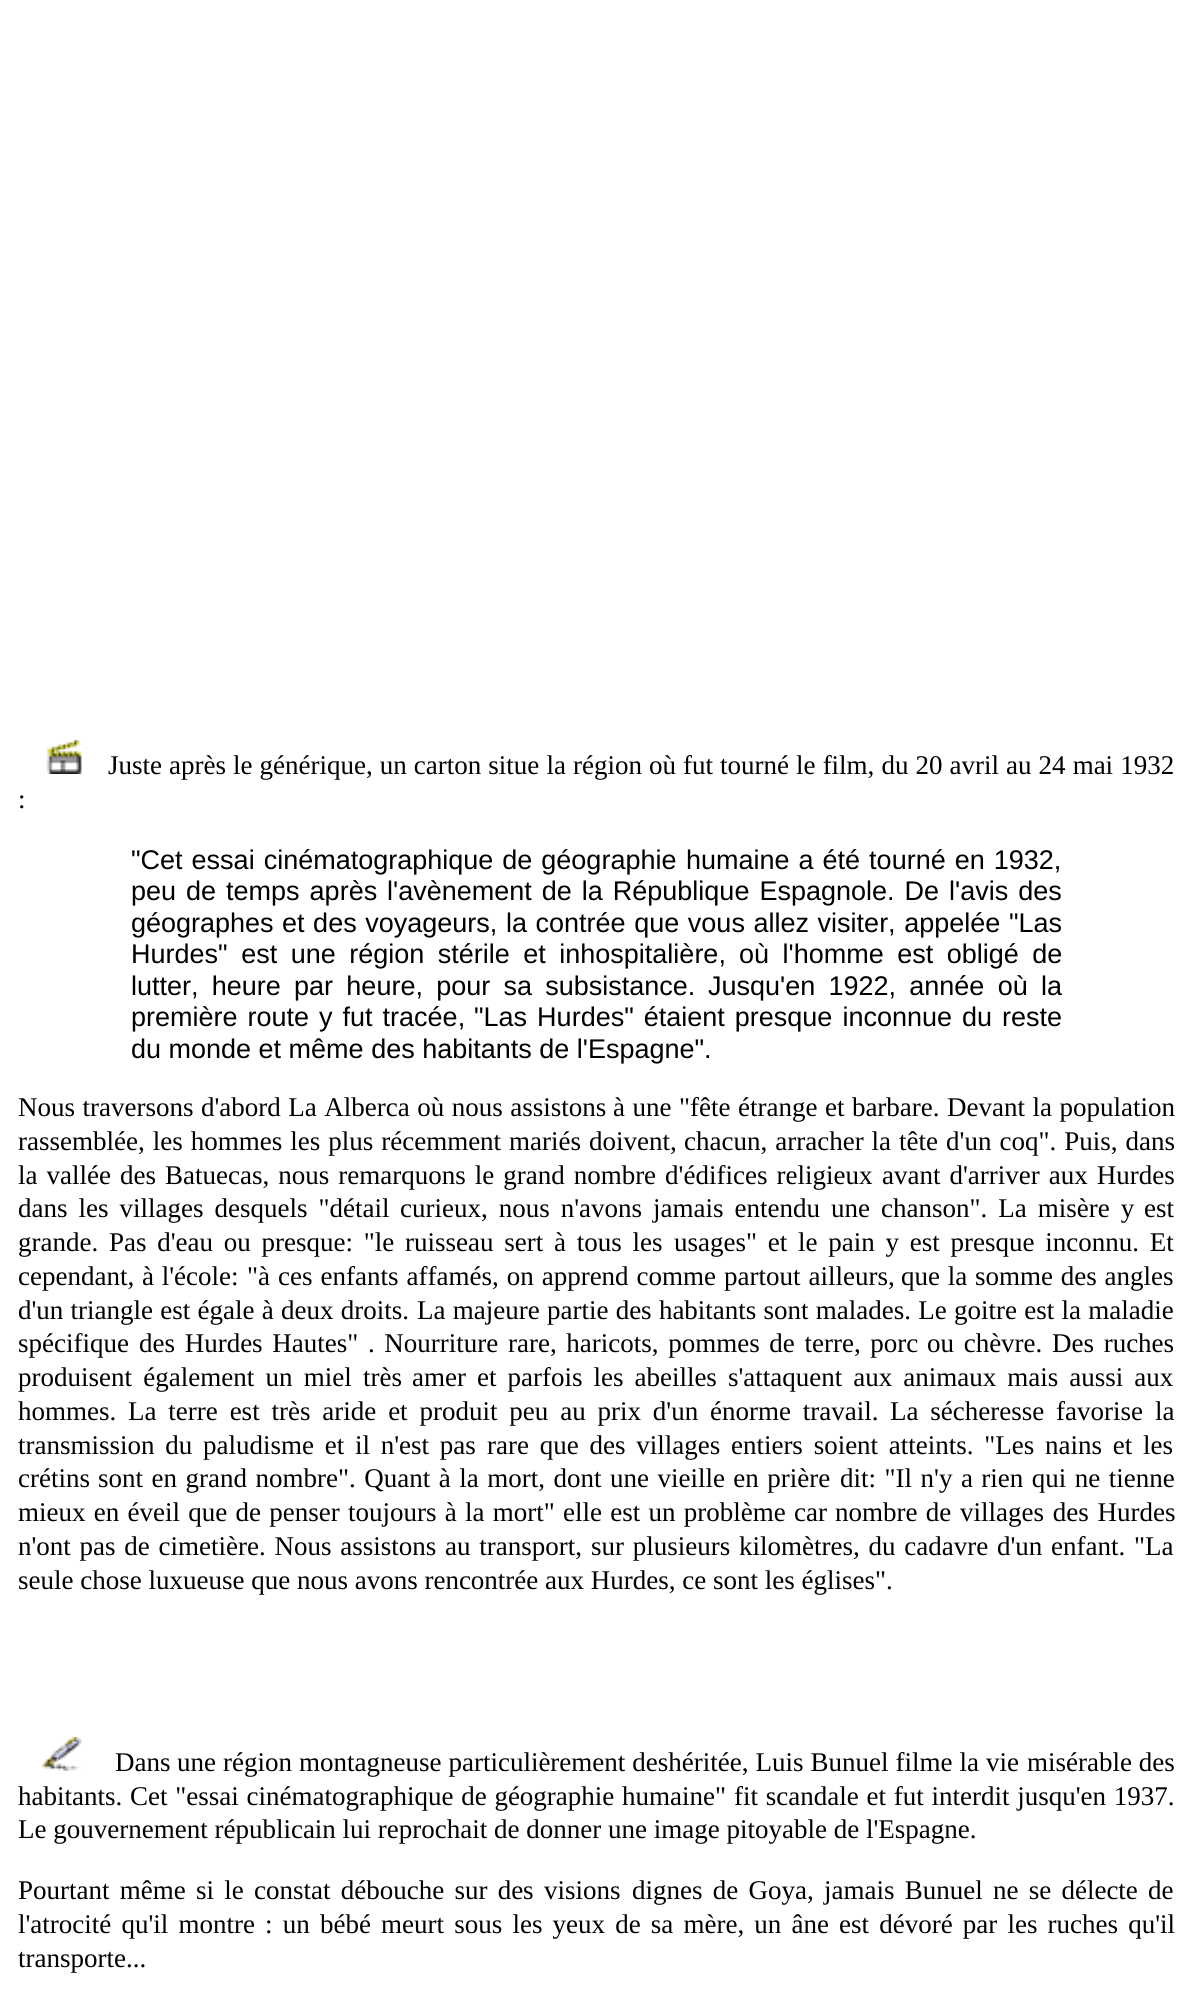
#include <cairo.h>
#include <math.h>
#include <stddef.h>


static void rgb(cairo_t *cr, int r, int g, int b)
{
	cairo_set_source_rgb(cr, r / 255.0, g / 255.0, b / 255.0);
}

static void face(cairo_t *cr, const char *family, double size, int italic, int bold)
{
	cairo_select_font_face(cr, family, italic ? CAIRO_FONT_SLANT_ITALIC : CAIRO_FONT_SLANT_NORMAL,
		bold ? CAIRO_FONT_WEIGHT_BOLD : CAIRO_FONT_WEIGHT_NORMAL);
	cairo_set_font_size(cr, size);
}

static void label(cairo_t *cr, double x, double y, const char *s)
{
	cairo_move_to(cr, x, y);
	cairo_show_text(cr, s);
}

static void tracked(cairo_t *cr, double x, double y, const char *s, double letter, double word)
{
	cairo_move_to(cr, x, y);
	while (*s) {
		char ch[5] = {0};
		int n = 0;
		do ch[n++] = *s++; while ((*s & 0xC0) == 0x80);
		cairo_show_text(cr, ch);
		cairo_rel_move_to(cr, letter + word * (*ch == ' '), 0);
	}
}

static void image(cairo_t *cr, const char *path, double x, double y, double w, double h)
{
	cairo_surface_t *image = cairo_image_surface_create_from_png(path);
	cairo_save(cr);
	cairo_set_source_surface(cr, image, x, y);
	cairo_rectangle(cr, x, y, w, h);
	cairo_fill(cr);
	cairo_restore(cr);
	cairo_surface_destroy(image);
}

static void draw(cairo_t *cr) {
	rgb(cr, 255, 255, 255);
	cairo_paint(cr);
	image(cr, "image0.png", 46, 740, 36, 34);
	face(cr, "Liberation Serif", 27, 0, 0);
	rgb(cr, 0, 0, 0);
	label(cr, 108, 774, "Juste");
	tracked(cr, 169, 774, "après le générique, un carton situe la région où fut tourné le film, du 20 avril au 24 mai 1932", 0, 0.3);
	label(cr, 18, 808, ":");
	face(cr, "Liberation Sans", 27, 0, 0);
	tracked(cr, 131, 869, "\"Cet essai cinématographique de géographie", 0, 1.5);
	tracked(cr, 686, 869, "humaine a été tourné en 1932,", 0, 1.5);
	tracked(cr, 131, 900, "peu de temps après", 0, 2.5);
	tracked(cr, 387, 900, "l'avènement de la République Espagnole. De l'avis des", 0, 2.5);
	label(cr, 131, 932, "géographes");
	tracked(cr, 282, 932, "et des voyageurs, la contrée que vous allez visiter, appelée", 0, 1.1);
	label(cr, 1009, 932, "\"Las");
	tracked(cr, 131, 963, "Hurdes\" est une région stérile et inhospitalière,", 0, 6);
	tracked(cr, 739, 963, "où l'homme est obligé de", 0, 6);
	tracked(cr, 131, 995, "lutter, heure par heure, pour sa subsistance.", 0, 5.75);
	tracked(cr, 708, 995, "Jusqu'en 1922, année où la", 0, 5.75);
	tracked(cr, 131, 1026, "première route y fut tracée,", 0, 2.5);
	tracked(cr, 474, 1026, "\"Las Hurdes\" étaient presque inconnue du reste", 0, 2.5);
	label(cr, 131, 1058, "du monde et même des habitants de l'Espagne\".");
	face(cr, "Liberation Serif", 27, 0, 0);
	tracked(cr, 18, 1116, "Nous traversons d'abord La Alberca où nous assistons", 0, 0.75);
	tracked(cr, 613, 1116, "à une \"fête étrange et barbare. Devant la population", 0, 0.75);
	tracked(cr, 18, 1150, "rassemblée, les hommes les plus récemment mariés doivent,", 0, 1.25);
	tracked(cr, 684, 1150, "chacun, arracher la tête d'un coq\". Puis, dans", 0, 1.25);
	tracked(cr, 18, 1184, "la vallée", 0, 2.25);
	tracked(cr, 120, 1184, "des Batuecas, nous remarquons le grand nombre d'édifices religieux", 0, 2.25);
	tracked(cr, 882, 1184, "avant d'arriver aux Hurdes", 0, 2.25);
	tracked(cr, 18, 1217, "dans les villages desquels \"détail", 0, 4.25);
	tracked(cr, 400, 1217, "curieux, nous n'avons jamais entendu une chanson\". La misère y", 0, 4.25);
	label(cr, 1144, 1217, "est");
	tracked(cr, 18, 1251, "grande. Pas d'eau ou presque: \"le ruisseau sert à tous les", 0, 4);
	tracked(cr, 674, 1251, "usages\" et le pain y est presque inconnu. Et", 0, 4);
	tracked(cr, 18, 1285, "cependant, à l'école:", 0, 1);
	tracked(cr, 247, 1285, "\"à ces enfants affamés, on apprend comme partout ailleurs,", 0, 1.25);
	tracked(cr, 901, 1285, "que la somme des angles", 0, 1);
	tracked(cr, 18, 1319, "d'un triangle est égale à deux droits.", 0, 0.5);
	tracked(cr, 417, 1319, "La majeure partie des habitants sont malades. Le goitre est la maladie", 0, 0.5);
	label(cr, 18, 1352, "spécifique");
	tracked(cr, 139, 1352, "des Hurdes Hautes\" . Nourriture rare, haricots, pommes de terre, porc", 0, 2.9);
	tracked(cr, 927, 1352, "ou chèvre. Des ruches", 0, 2.9);
	tracked(cr, 18, 1386, "produisent également un miel très", 0, 4.5);
	tracked(cr, 412, 1386, "amer et parfois les abeilles s'attaquent aux animaux mais aussi aux", 0, 4.25);
	label(cr, 18, 1420, "hommes.");
	tracked(cr, 128, 1420, "La terre est très aride et produit peu au prix d'un énorme travail.", 0, 5.1);
	tracked(cr, 890, 1420, "La sécheresse favorise la", 0, 5.1);
	tracked(cr, 18, 1454, "transmission du paludisme et il n'est pas", 0, 4);
	tracked(cr, 487, 1454, "rare que des villages entiers soient atteints. \"Les nains et les", 0, 4);
	label(cr, 18, 1487, "crétins");
	tracked(cr, 98, 1487, "sont en grand nombre\". Quant à la mort, dont une vieille en prière", 0, 1.75);
	tracked(cr, 840, 1487, "dit: \"Il n'y a rien qui ne tienne", 0, 1.75);
	tracked(cr, 18, 1521, "mieux en éveil que de penser", 0, 1.5);
	tracked(cr, 348, 1521, "toujours à la mort\" elle est un problème car nombre de", 0, 1.5);
	tracked(cr, 960, 1521, "villages des Hurdes", 0, 2);
	tracked(cr, 18, 1555, "n'ont pas de cimetière. Nous assistons au transport,", 0, 2);
	tracked(cr, 591, 1555, "sur plusieurs kilomètres, du cadavre d'un enfant. \"La", 0, 2);
	label(cr, 18, 1589, "seule chose luxueuse que nous avons rencontrée aux Hurdes, ce sont les églises\".");
	image(cr, "image1.png", 42, 1737, 40, 34);
	label(cr, 115, 1771, "Dans");
	tracked(cr, 177, 1771, "une région montagneuse particulièrement deshéritée, Luis Bunuel filme la vie", 0, 0.25);
	label(cr, 1027, 1771, "misérable des");
	tracked(cr, 18, 1805, "habitants. Cet \"essai cinématographique de géographie humaine\"", 0, 1);
	tracked(cr, 734, 1805, "fit scandale et fut interdit jusqu'en 1937.", 0, 1);
	label(cr, 18, 1838, "Le gouvernement républicain lui reprochait de donner une image pitoyable de l'Espagne.");
	tracked(cr, 18, 1899, "Pourtant même si le constat débouche sur des visions", 0, 3.5);
	tracked(cr, 632, 1899, "dignes de Goya, jamais Bunuel ne se délecte de", 0, 3.5);
	tracked(cr, 18, 1933, "l'atrocité qu'il montre : un", 0, 3.4);
	tracked(cr, 320, 1933, "bébé meurt sous les yeux de sa mère, un âne est dévoré par les ruches qu'il", 0, 3.4);
	label(cr, 18, 1967, "transporte...");
}

int main(void) {
	cairo_surface_t *surface = cairo_image_surface_create(CAIRO_FORMAT_RGB24, 1191, 1989);
	cairo_t *cr = cairo_create(surface);
	cairo_font_options_t *options = cairo_font_options_create();
	cairo_font_options_set_hint_metrics(options, CAIRO_HINT_METRICS_OFF);
	cairo_font_options_set_hint_style(options, CAIRO_HINT_STYLE_NONE);
	cairo_set_font_options(cr, options);
	cairo_set_miter_limit(cr, 4);
	draw(cr);
	cairo_surface_write_to_png(surface, "render.png");
	cairo_font_options_destroy(options);
	cairo_destroy(cr);
	cairo_surface_destroy(surface);
	return 0;
}
